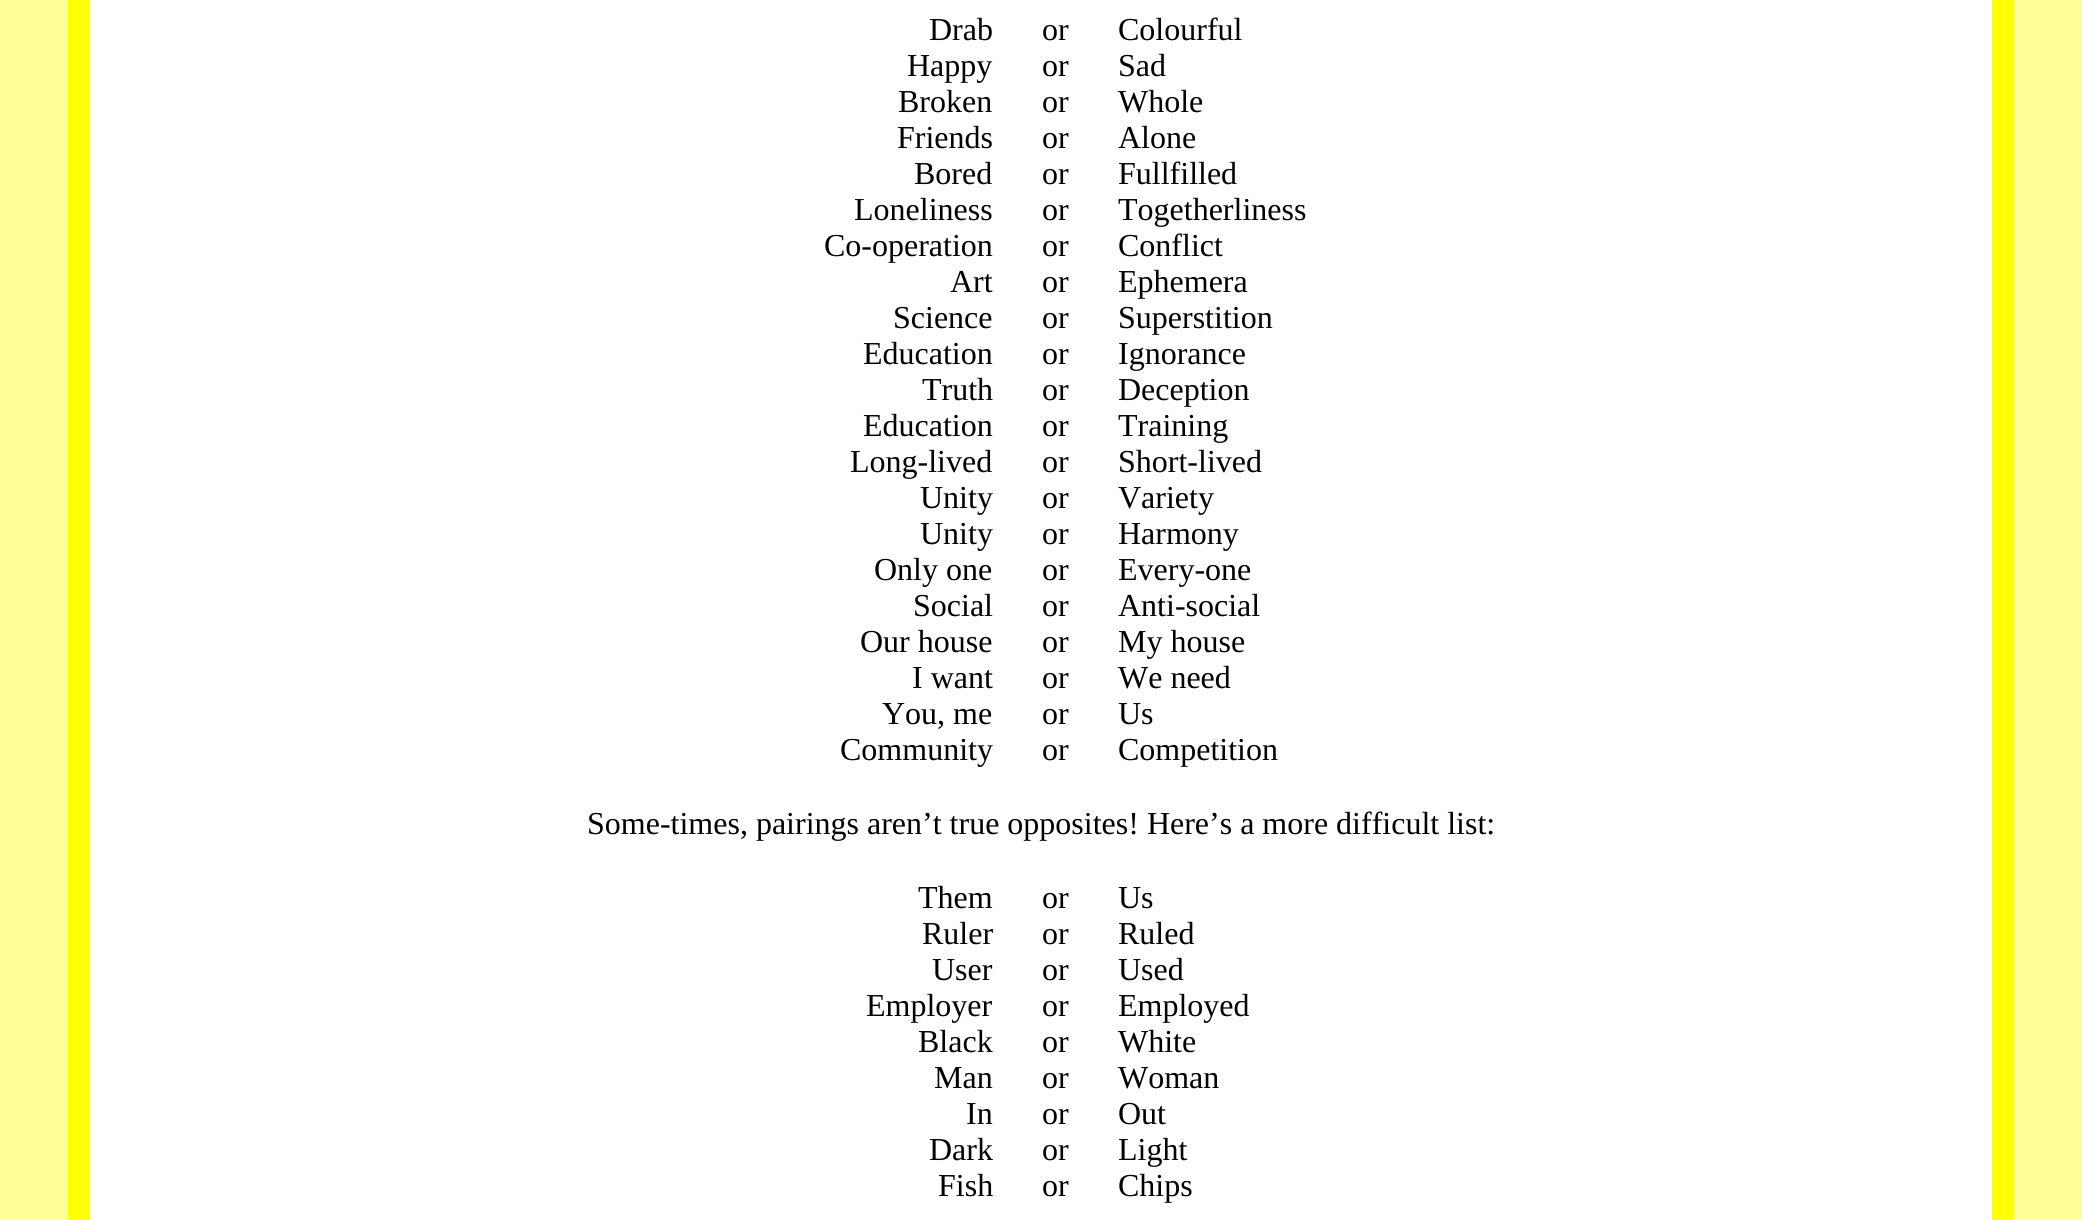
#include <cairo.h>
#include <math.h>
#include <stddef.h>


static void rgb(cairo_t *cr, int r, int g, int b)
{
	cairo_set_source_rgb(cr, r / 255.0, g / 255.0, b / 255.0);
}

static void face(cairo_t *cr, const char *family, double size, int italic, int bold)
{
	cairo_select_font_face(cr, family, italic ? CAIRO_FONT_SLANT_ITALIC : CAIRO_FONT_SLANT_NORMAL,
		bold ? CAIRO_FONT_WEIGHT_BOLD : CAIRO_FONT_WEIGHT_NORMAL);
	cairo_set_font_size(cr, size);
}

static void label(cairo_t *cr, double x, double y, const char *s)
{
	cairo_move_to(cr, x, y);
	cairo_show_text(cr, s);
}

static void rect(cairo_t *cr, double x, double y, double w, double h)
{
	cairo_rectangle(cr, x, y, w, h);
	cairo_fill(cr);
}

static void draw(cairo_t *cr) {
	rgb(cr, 255, 255, 153);
	cairo_paint(cr);
	rgb(cr, 255, 255, 255);
	rect(cr, 90, 0, 1902, 1220);
	cairo_rectangle(cr, 78, -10, 1926, 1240);
	rgb(cr, 255, 255, 0);
	cairo_set_line_width(cr, 20);
	cairo_stroke(cr);
	cairo_rectangle(cr, 89, -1, 1904, 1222);
	cairo_set_line_width(cr, 2);
	cairo_stroke(cr);
	face(cr, "Liberation Serif", 32, 0, 0);
	rgb(cr, 0, 0, 0);
	label(cr, 929, 40, "Drab");
	label(cr, 907, 76, "Happy");
	label(cr, 898, 112, "Broken");
	label(cr, 897, 148, "Friends");
	label(cr, 914, 184, "Bored");
	label(cr, 854, 220, "Loneliness");
	label(cr, 824, 256, "Co-operation");
	label(cr, 950, 292, "Art");
	label(cr, 893, 328, "Science");
	label(cr, 863, 364, "Education");
	label(cr, 922, 400, "Truth");
	label(cr, 863, 436, "Education");
	label(cr, 850, 472, "Long-lived");
	label(cr, 920, 508, "Unity");
	label(cr, 920, 544, "Unity");
	label(cr, 874, 580, "Only one");
	label(cr, 913, 616, "Social");
	label(cr, 860, 652, "Our house");
	label(cr, 912, 688, "I want");
	label(cr, 882, 724, "You, me");
	label(cr, 840, 760, "Community");
	label(cr, 1042, 40, "or");
	label(cr, 1042, 76, "or");
	label(cr, 1042, 112, "or");
	label(cr, 1042, 148, "or");
	label(cr, 1042, 184, "or");
	label(cr, 1042, 220, "or");
	label(cr, 1042, 256, "or");
	label(cr, 1042, 292, "or");
	label(cr, 1042, 328, "or");
	label(cr, 1042, 364, "or");
	label(cr, 1042, 400, "or");
	label(cr, 1042, 436, "or");
	label(cr, 1042, 472, "or");
	label(cr, 1042, 508, "or");
	label(cr, 1042, 544, "or");
	label(cr, 1042, 580, "or");
	label(cr, 1042, 616, "or");
	label(cr, 1042, 652, "or");
	label(cr, 1042, 688, "or");
	label(cr, 1042, 724, "or");
	label(cr, 1042, 760, "or");
	label(cr, 1118, 40, "Colourful");
	label(cr, 1118, 76, "Sad");
	label(cr, 1118, 112, "Whole");
	label(cr, 1118, 148, "Alone");
	label(cr, 1118, 184, "Fullfilled");
	label(cr, 1118, 220, "Togetherliness");
	label(cr, 1118, 256, "Conflict");
	label(cr, 1118, 292, "Ephemera");
	label(cr, 1118, 328, "Superstition");
	label(cr, 1118, 364, "Ignorance");
	label(cr, 1118, 400, "Deception");
	label(cr, 1118, 436, "Training");
	label(cr, 1118, 472, "Short-lived");
	label(cr, 1118, 508, "Variety");
	label(cr, 1118, 544, "Harmony");
	label(cr, 1118, 580, "Every-one");
	label(cr, 1118, 616, "Anti-social");
	label(cr, 1118, 652, "My house");
	label(cr, 1118, 688, "We need");
	label(cr, 1118, 724, "Us");
	label(cr, 1118, 760, "Competition");
	label(cr, 587, 834, "Some-times, pairings aren’t true opposites! Here’s a more difficult list:");
	label(cr, 918, 908, "Them");
	label(cr, 922, 944, "Ruler");
	label(cr, 932, 980, "User");
	label(cr, 866, 1016, "Employer");
	label(cr, 918, 1052, "Black");
	label(cr, 934, 1088, "Man");
	label(cr, 966, 1124, "In");
	label(cr, 929, 1160, "Dark");
	label(cr, 938, 1196, "Fish");
	label(cr, 1042, 908, "or");
	label(cr, 1042, 944, "or");
	label(cr, 1042, 980, "or");
	label(cr, 1042, 1016, "or");
	label(cr, 1042, 1052, "or");
	label(cr, 1042, 1088, "or");
	label(cr, 1042, 1124, "or");
	label(cr, 1042, 1160, "or");
	label(cr, 1042, 1196, "or");
	label(cr, 1118, 908, "Us");
	label(cr, 1118, 944, "Ruled");
	label(cr, 1118, 980, "Used");
	label(cr, 1118, 1016, "Employed");
	label(cr, 1118, 1052, "White");
	label(cr, 1118, 1088, "Woman");
	label(cr, 1118, 1124, "Out");
	label(cr, 1118, 1160, "Light");
	label(cr, 1118, 1196, "Chips");
}

int main(void) {
	cairo_surface_t *surface = cairo_image_surface_create(CAIRO_FORMAT_RGB24, 2082, 1220);
	cairo_t *cr = cairo_create(surface);
	cairo_font_options_t *options = cairo_font_options_create();
	cairo_font_options_set_hint_metrics(options, CAIRO_HINT_METRICS_OFF);
	cairo_font_options_set_hint_style(options, CAIRO_HINT_STYLE_NONE);
	cairo_set_font_options(cr, options);
	cairo_set_miter_limit(cr, 4);
	draw(cr);
	cairo_surface_write_to_png(surface, "render.png");
	cairo_font_options_destroy(options);
	cairo_destroy(cr);
	cairo_surface_destroy(surface);
	return 0;
}
